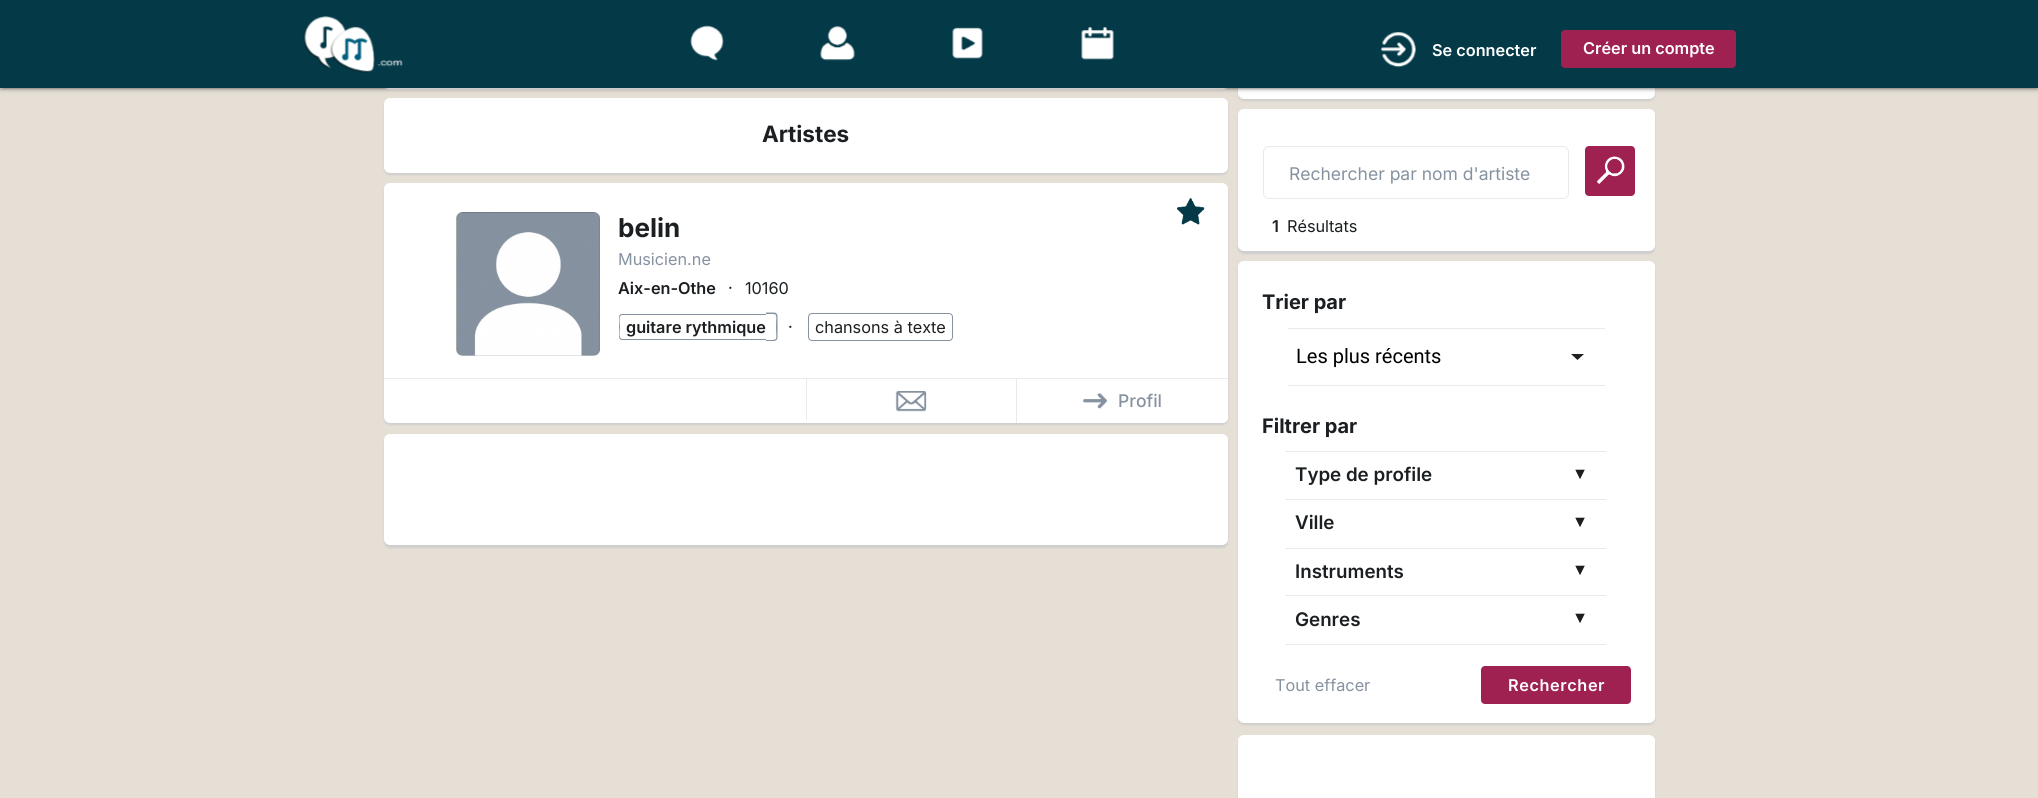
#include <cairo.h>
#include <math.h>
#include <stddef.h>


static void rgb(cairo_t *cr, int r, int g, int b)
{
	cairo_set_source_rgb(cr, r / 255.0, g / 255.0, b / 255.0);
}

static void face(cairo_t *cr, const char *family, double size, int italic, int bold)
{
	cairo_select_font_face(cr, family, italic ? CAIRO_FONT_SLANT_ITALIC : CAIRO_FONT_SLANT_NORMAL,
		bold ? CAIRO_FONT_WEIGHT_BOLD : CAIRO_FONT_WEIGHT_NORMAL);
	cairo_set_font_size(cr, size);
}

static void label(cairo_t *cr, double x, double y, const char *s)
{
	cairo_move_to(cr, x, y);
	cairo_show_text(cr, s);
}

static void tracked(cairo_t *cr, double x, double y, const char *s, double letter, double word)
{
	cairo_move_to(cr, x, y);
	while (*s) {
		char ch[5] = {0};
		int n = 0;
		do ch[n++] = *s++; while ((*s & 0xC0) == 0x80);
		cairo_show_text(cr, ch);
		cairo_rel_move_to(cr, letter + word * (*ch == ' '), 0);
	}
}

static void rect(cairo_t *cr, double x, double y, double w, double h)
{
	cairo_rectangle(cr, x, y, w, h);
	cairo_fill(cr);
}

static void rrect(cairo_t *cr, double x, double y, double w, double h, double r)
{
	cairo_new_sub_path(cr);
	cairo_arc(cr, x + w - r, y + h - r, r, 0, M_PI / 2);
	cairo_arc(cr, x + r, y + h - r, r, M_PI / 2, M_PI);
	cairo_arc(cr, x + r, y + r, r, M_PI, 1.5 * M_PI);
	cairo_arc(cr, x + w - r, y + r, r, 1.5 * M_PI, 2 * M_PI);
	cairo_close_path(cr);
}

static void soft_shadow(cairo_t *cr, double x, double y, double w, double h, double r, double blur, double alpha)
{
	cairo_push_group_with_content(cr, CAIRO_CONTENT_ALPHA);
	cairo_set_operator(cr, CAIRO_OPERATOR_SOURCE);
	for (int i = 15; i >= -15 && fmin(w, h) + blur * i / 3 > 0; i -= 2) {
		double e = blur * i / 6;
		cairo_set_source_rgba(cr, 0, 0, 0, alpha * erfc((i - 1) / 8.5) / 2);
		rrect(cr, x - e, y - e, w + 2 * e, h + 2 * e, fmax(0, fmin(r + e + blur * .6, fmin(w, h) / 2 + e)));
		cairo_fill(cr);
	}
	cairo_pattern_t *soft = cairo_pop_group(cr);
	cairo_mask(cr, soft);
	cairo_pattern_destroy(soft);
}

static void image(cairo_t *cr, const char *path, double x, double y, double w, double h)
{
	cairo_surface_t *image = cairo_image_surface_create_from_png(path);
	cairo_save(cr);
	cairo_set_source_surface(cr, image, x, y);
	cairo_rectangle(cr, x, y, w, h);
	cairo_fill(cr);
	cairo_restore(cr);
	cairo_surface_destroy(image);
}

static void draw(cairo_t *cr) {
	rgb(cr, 230, 223, 214);
	cairo_paint(cr);
	rgb(cr, 206, 206, 206);
	soft_shadow(cr, 384, 100, 844, 75, 6, 1, 1);
	rgb(cr, 255, 255, 255);
	rrect(cr, 384, 98, 844, 75, 6);
	cairo_fill(cr);
	rgb(cr, 206, 206, 206);
	soft_shadow(cr, 1238, -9, 417, 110, 6, 1, 1);
	rgb(cr, 255, 255, 255);
	rrect(cr, 1238, -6, 417, 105, 6);
	cairo_fill(cr);
	rgb(cr, 0, 0, 0);
	soft_shadow(cr, 0, 1, 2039, 88, 0, 3, 0.2);
	soft_shadow(cr, 3, 6, 2033, 83, 0, 0.5, 0.12);
	soft_shadow(cr, 0, 3, 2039, 87, 0, 1, 0.14);
	rgb(cr, 206, 206, 206);
	soft_shadow(cr, 384, -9, 844, 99, 6, 1, 1);
	rgb(cr, 4, 58, 71);
	rect(cr, 0, 0, 2038, 88);
	image(cr, "image0.png", 303, 16, 100, 57);
	image(cr, "image1.png", 690, 25, 34, 36);
	image(cr, "image2.png", 820, 26, 35, 35);
	image(cr, "image3.png", 952, 27, 31, 32);
	image(cr, "image4.png", 1081, 27, 33, 33);
	image(cr, "image5.png", 1380, 32, 36, 36);
	face(cr, "Inter SemiBold", 16.25, 0, 0);
	rgb(cr, 255, 255, 255);
	label(cr, 1432, 56, "Se connecter");
	rgb(cr, 158, 33, 81);
	rrect(cr, 1561, 30, 175, 38, 4);
	cairo_fill(cr);
	rgb(cr, 255, 255, 255);
	label(cr, 1583, 54, "Créer un compte");
	face(cr, "Inter", 22.5, 0, 1);
	rgb(cr, 27, 31, 33);
	label(cr, 762, 142, "Artistes");
	rgb(cr, 206, 206, 206);
	soft_shadow(cr, 384, 185, 844, 240, 6, 1, 1);
	rgb(cr, 255, 255, 255);
	rrect(cr, 384, 183, 844, 240, 6);
	cairo_fill(cr);
	image(cr, "image6.png", 1176, 198, 29, 27);
	image(cr, "image7.png", 456, 212, 144, 144);
	face(cr, "Inter", 26, 0, 1);
	rgb(cr, 27, 31, 33);
	label(cr, 618, 237, "belin");
	face(cr, "Inter", 16.25, 0, 0);
	rgb(cr, 134, 146, 160);
	label(cr, 618, 265, "Musicien.ne");
	face(cr, "Inter SemiBold", 16.25, 0, 0);
	rgb(cr, 27, 31, 33);
	label(cr, 618, 294, "Aix-en-Othe");
	face(cr, "Liberation Serif", 18.75, 0, 0);
	label(cr, 728, 294, "∙");
	face(cr, "Inter", 16.25, 0, 0);
	label(cr, 745, 294, "10160");
	rgb(cr, 134, 146, 160);
	cairo_set_fill_rule(cr, CAIRO_FILL_RULE_EVEN_ODD);
	cairo_new_path(cr);
	cairo_move_to(cr, 622, 314);
	cairo_line_to(cr, 766, 314);
	cairo_line_to(cr, 766, 340);
	cairo_line_to(cr, 622, 340);
	cairo_curve_to(cr, 620, 340, 619, 338, 619, 336);
	cairo_line_to(cr, 619, 318);
	cairo_curve_to(cr, 619, 315, 620, 314, 622, 314);
	cairo_close_path(cr);
	cairo_move_to(cr, 622, 315);
	cairo_line_to(cr, 766, 315);
	cairo_line_to(cr, 766, 339);
	cairo_line_to(cr, 622, 339);
	cairo_curve_to(cr, 618, 338, 620, 329, 620, 327);
	cairo_curve_to(cr, 620, 325, 618, 315, 622, 315);
	cairo_close_path(cr);
	cairo_fill(cr);
	face(cr, "Inter SemiBold", 16.25, 0, 0);
	rgb(cr, 27, 31, 33);
	label(cr, 626, 333, "guitare rythmique");
	rgb(cr, 134, 146, 160);
	cairo_new_path(cr);
	cairo_move_to(cr, 766, 312.5);
	cairo_line_to(cr, 774, 312.5);
	cairo_curve_to(cr, 776, 312.5, 777.5, 314, 777.5, 316);
	cairo_line_to(cr, 777.5, 337.5);
	cairo_curve_to(cr, 777.5, 339.5, 776, 341, 774, 341);
	cairo_line_to(cr, 766, 341);
	cairo_close_path(cr);
	cairo_move_to(cr, 766, 314);
	cairo_curve_to(cr, 779, 314, 776, 312.5, 776, 327);
	cairo_curve_to(cr, 776, 341, 779, 340, 766, 340);
	cairo_close_path(cr);
	cairo_fill(cr);
	face(cr, "Liberation Serif", 18.75, 0, 0);
	rgb(cr, 27, 31, 33);
	label(cr, 788, 333, "∙");
	rrect(cr, 808.5, 313.5, 144, 27, 3.5);
	rgb(cr, 134, 146, 160);
	cairo_set_line_width(cr, 1);
	cairo_stroke(cr);
	face(cr, "Inter", 16.25, 0, 0);
	rgb(cr, 27, 31, 33);
	label(cr, 815, 333, "chansons à texte");
	rgb(cr, 234, 234, 234);
	rect(cr, 384, 378, 844, 1);
	rect(cr, 1016, 379, 1, 44);
	rect(cr, 806, 379, 1, 41);
	image(cr, "image8.png", 895, 391, 32, 21);
	rgb(cr, 255, 255, 255);
	cairo_new_path(cr);
	cairo_move_to(cr, 1018, 379);
	cairo_line_to(cr, 1228, 379);
	cairo_line_to(cr, 1228, 417);
	cairo_curve_to(cr, 1228, 420.5, 1225.5, 423, 1222, 423);
	cairo_line_to(cr, 1018, 423);
	cairo_close_path(cr);
	cairo_fill(cr);
	image(cr, "image9.png", 1083, 393, 25, 16);
	face(cr, "Inter Medium", 17.5, 0, 0);
	rgb(cr, 134, 146, 160);
	label(cr, 1118, 407, "Profil");
	rgb(cr, 206, 206, 206);
	soft_shadow(cr, 384, 436, 844, 112, 6, 1, 1);
	rgb(cr, 255, 255, 255);
	rrect(cr, 384, 434, 844, 111, 6);
	cairo_fill(cr);
	rgb(cr, 206, 206, 206);
	soft_shadow(cr, 1238, 111, 417, 143, 6, 1, 1);
	rgb(cr, 255, 255, 255);
	rrect(cr, 1238, 109, 417, 142, 6);
	cairo_fill(cr);
	rrect(cr, 1263.5, 146.5, 305, 52, 5.5);
	rgb(cr, 234, 234, 234);
	cairo_stroke(cr);
	face(cr, "Inter", 17.5, 0, 0);
	rgb(cr, 134, 146, 160);
	label(cr, 1289, 180, "Rechercher par nom d'artiste");
	rgb(cr, 158, 33, 81);
	rrect(cr, 1585, 146, 50, 50, 4);
	cairo_fill(cr);
	image(cr, "image10.png", 1597, 156, 28, 28);
	face(cr, "Inter SemiBold", 16.25, 0, 0);
	rgb(cr, 27, 31, 33);
	label(cr, 1272, 232, "1");
	face(cr, "Inter", 16.25, 0, 0);
	label(cr, 1287, 232, "Résultats");
	rgb(cr, 206, 206, 206);
	soft_shadow(cr, 1238, 264, 417, 461, 6, 1, 1);
	rgb(cr, 255, 255, 255);
	rrect(cr, 1238, 261, 417, 462, 6);
	cairo_fill(cr);
	face(cr, "Inter", 20, 0, 1);
	rgb(cr, 27, 31, 33);
	label(cr, 1262, 309, "Trier par");
	rgb(cr, 234, 234, 234);
	rect(cr, 1288, 328, 317, 1);
	rect(cr, 1288, 385, 317, 1);
	face(cr, "Roboto", 20, 0, 0);
	rgb(cr, 0, 0, 0);
	label(cr, 1296, 363, "Les plus récents");
	rgb(cr, 33, 33, 33);
	cairo_set_fill_rule(cr, CAIRO_FILL_RULE_WINDING);
	cairo_new_path(cr);
	cairo_move_to(cr, 1571, 354);
	cairo_line_to(cr, 1577.5, 360);
	cairo_line_to(cr, 1584, 354);
	cairo_close_path(cr);
	cairo_fill(cr);
	face(cr, "Inter", 20, 0, 1);
	rgb(cr, 27, 31, 33);
	label(cr, 1262, 433, "Filtrer par");
	rgb(cr, 234, 234, 234);
	rect(cr, 1285, 451, 321, 1);
	rect(cr, 1285, 499, 321, 1);
	face(cr, "Inter SemiBold", 18.75, 0, 0);
	rgb(cr, 27, 31, 33);
	label(cr, 1295, 481, "Type de profile");
	face(cr, "Liberation Serif", 16.25, 0, 1);
	label(cr, 1572, 479, "▼");
	rgb(cr, 234, 234, 234);
	rect(cr, 1285, 548, 321, 1);
	face(cr, "Inter SemiBold", 18.75, 0, 0);
	rgb(cr, 27, 31, 33);
	label(cr, 1295, 529, "Ville");
	face(cr, "Liberation Serif", 16.25, 0, 1);
	label(cr, 1572, 527, "▼");
	rgb(cr, 234, 234, 234);
	rect(cr, 1285, 595, 321, 1);
	face(cr, "Inter SemiBold", 18.75, 0, 0);
	rgb(cr, 27, 31, 33);
	label(cr, 1295, 578, "Instruments");
	face(cr, "Liberation Serif", 16.25, 0, 1);
	label(cr, 1572, 575, "▼");
	rgb(cr, 234, 234, 234);
	rect(cr, 1285, 644, 321, 1);
	face(cr, "Inter SemiBold", 18.75, 0, 0);
	rgb(cr, 27, 31, 33);
	label(cr, 1295, 626, "Genres");
	face(cr, "Liberation Serif", 16.25, 0, 1);
	label(cr, 1572, 623, "▼");
	face(cr, "Inter", 16.25, 0, 0);
	rgb(cr, 134, 146, 160);
	label(cr, 1275, 691, "Tout effacer");
	rgb(cr, 158, 33, 81);
	rrect(cr, 1481, 666, 150, 38, 4);
	cairo_fill(cr);
	face(cr, "Inter SemiBold", 16.25, 0, 0);
	rgb(cr, 255, 255, 255);
	tracked(cr, 1508, 691, "Rechercher", 0.6, 0);
	rgb(cr, 206, 206, 206);
	soft_shadow(cr, 1238, 738, 417, 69, 6, 1, 1);
	rgb(cr, 255, 255, 255);
	rrect(cr, 1238, 735, 417, 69, 6);
	cairo_fill(cr);
}

int main(void) {
	cairo_surface_t *surface = cairo_image_surface_create(CAIRO_FORMAT_RGB24, 2038, 798);
	cairo_t *cr = cairo_create(surface);
	cairo_font_options_t *options = cairo_font_options_create();
	cairo_font_options_set_hint_metrics(options, CAIRO_HINT_METRICS_OFF);
	cairo_font_options_set_hint_style(options, CAIRO_HINT_STYLE_NONE);
	cairo_set_font_options(cr, options);
	cairo_set_miter_limit(cr, 4);
	draw(cr);
	cairo_surface_write_to_png(surface, "render.png");
	cairo_font_options_destroy(options);
	cairo_destroy(cr);
	cairo_surface_destroy(surface);
	return 0;
}
